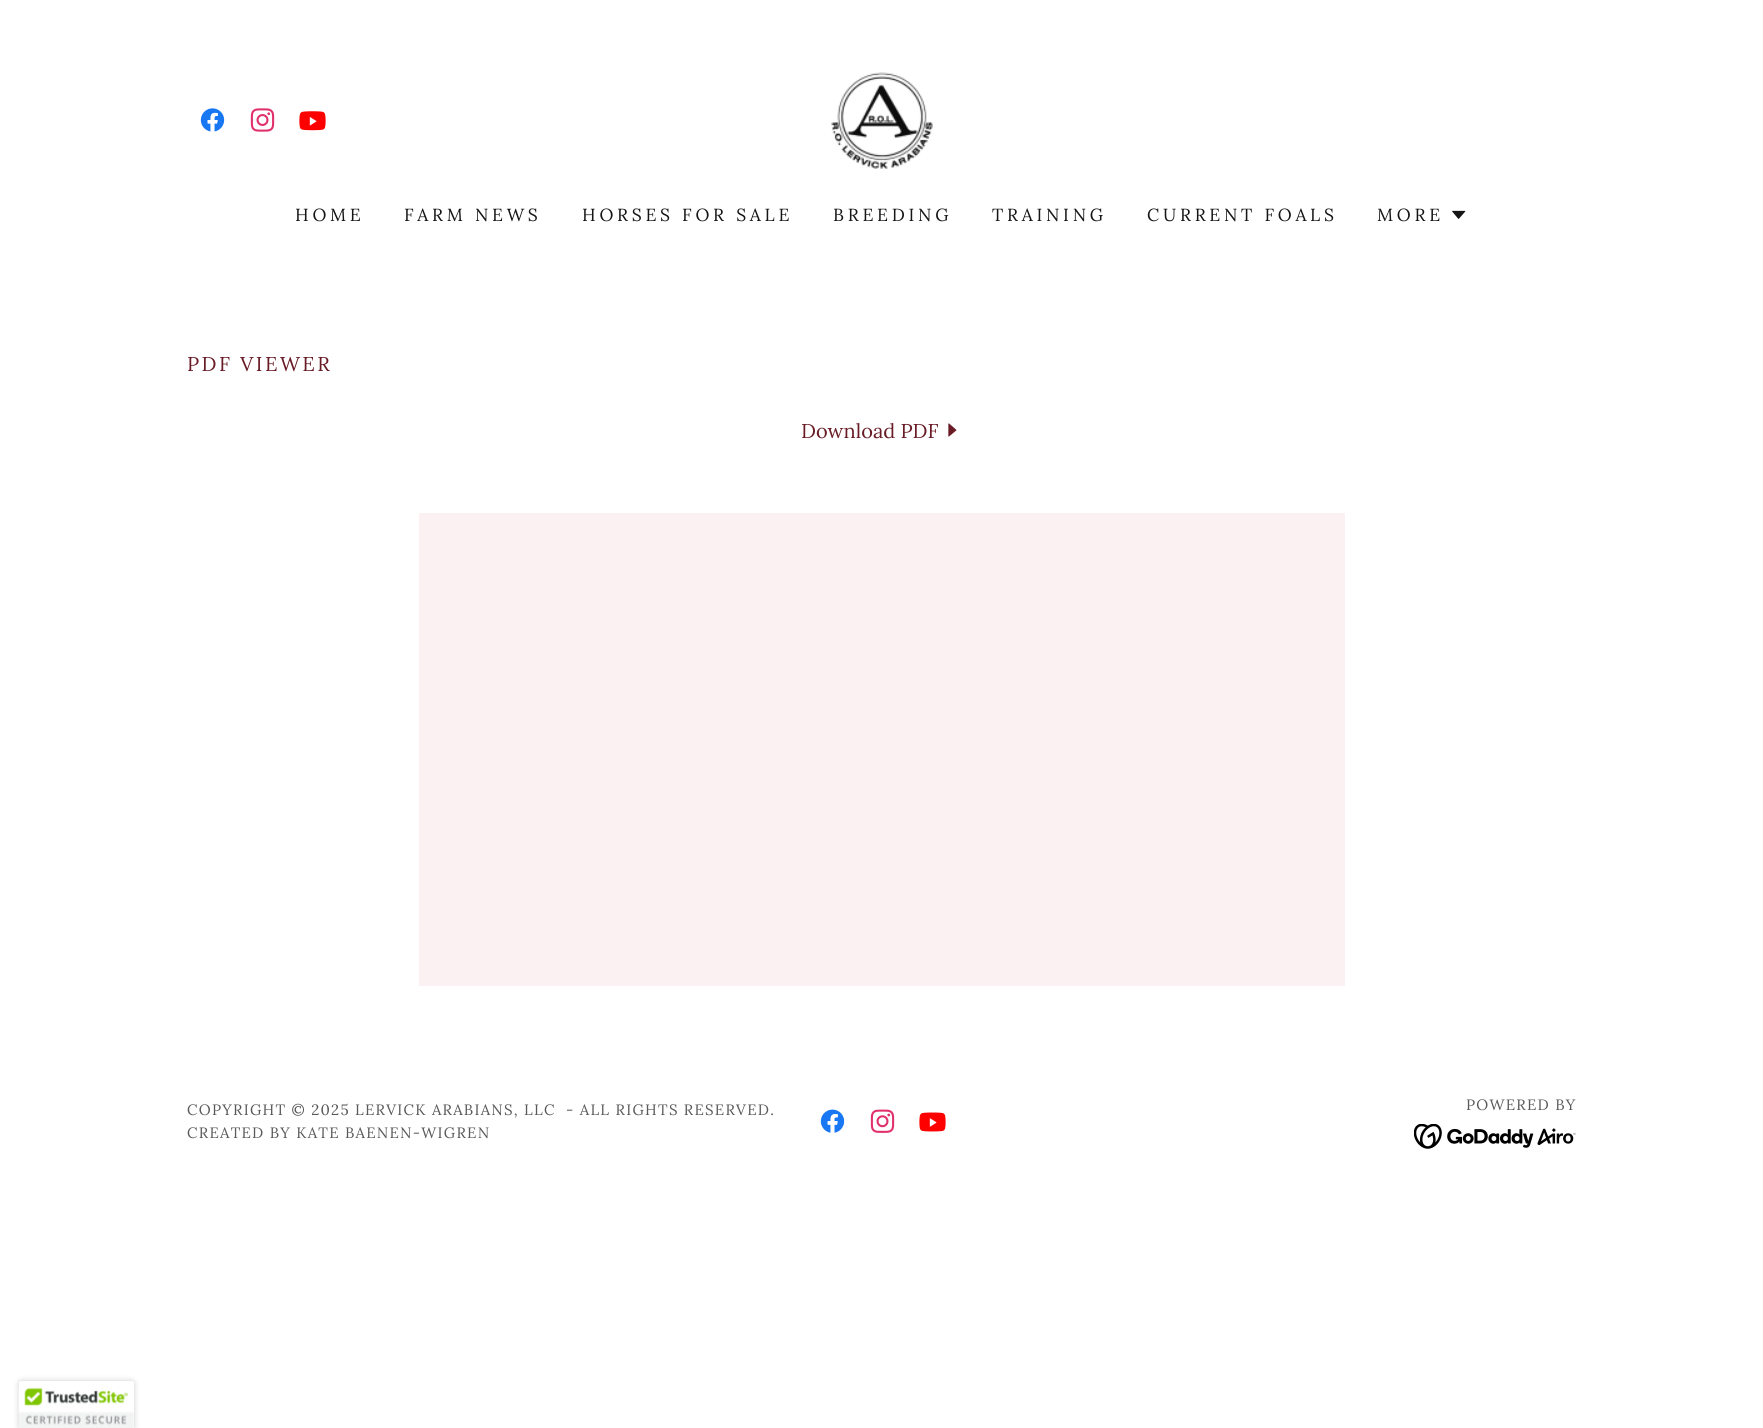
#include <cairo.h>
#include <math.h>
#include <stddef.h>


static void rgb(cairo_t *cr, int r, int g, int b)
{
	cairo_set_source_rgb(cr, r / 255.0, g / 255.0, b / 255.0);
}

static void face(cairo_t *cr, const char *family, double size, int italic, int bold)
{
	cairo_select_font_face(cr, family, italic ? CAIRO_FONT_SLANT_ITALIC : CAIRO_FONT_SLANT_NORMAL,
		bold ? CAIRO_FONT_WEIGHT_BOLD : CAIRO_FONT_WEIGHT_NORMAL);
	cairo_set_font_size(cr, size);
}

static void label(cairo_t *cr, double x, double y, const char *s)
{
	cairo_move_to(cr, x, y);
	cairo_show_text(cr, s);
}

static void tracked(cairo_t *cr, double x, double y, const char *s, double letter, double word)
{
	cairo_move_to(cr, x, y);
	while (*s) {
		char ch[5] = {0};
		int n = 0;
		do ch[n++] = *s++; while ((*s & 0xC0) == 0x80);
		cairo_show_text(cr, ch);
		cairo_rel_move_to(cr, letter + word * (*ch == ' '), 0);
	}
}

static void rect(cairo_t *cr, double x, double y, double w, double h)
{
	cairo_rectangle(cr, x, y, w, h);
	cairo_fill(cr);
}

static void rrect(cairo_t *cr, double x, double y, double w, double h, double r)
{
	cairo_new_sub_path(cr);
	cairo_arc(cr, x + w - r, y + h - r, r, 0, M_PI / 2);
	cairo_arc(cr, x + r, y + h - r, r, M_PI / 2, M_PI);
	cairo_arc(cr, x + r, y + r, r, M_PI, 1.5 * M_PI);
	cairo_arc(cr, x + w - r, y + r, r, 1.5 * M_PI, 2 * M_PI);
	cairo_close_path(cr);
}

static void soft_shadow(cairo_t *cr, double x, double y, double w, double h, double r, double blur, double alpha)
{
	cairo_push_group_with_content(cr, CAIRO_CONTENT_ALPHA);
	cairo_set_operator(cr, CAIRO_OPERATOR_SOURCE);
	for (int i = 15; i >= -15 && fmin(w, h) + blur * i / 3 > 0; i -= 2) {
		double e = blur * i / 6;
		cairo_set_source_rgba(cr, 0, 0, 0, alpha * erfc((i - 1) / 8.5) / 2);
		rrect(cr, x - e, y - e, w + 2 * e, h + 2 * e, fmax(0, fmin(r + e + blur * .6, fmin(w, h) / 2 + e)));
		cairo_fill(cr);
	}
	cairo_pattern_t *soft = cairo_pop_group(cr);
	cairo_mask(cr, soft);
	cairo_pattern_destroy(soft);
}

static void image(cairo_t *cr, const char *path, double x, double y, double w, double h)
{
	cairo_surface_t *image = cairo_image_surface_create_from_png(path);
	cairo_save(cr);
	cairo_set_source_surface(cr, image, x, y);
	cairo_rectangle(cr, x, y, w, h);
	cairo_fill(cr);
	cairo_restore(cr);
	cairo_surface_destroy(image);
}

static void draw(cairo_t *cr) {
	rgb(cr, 255, 255, 255);
	cairo_paint(cr);
	image(cr, "image0.png", 200, 108, 25, 24);
	image(cr, "image1.png", 250, 108, 25, 24);
	image(cr, "image2.png", 299, 111, 27, 20);
	image(cr, "image3.png", 831, 72, 102, 97);
	face(cr, "Lora", 17.5, 0, 0);
	rgb(cr, 21, 21, 21);
	tracked(cr, 295, 221, "HOME", 3.75, 0);
	tracked(cr, 404, 221, "FARM NEWS", 3.75, 0);
	tracked(cr, 582, 221, "HORSES FOR SALE", 3.75, 0);
	tracked(cr, 833, 221, "BREEDING", 3.75, 0);
	tracked(cr, 992, 221, "TRAINING", 3.75, 0);
	tracked(cr, 1147, 221, "CURRENT FOALS", 3.75, 0);
	tracked(cr, 1377, 221, "MORE", 3.75, 0);
	image(cr, "image4.png", 1452, 210, 14, 9);
	face(cr, "Lora", 20, 0, 0);
	rgb(cr, 105, 28, 38);
	tracked(cr, 187, 371, "PDF VIEWER", 2.5, 0);
	label(cr, 801, 438, "Download PDF");
	image(cr, "image5.png", 948, 423, 9, 14);
	rgb(cr, 252, 241, 242);
	rect(cr, 419, 513, 926, 473);
	face(cr, "Lora", 15, 0, 0);
	rgb(cr, 89, 89, 89);
	tracked(cr, 187, 1115, "COPYRIGHT © 2025 LERVICK ARABIANS, LLC  - ALL RIGHTS RESERVED.", 1.25, 0);
	tracked(cr, 187, 1138, "CREATED BY KATE BAENEN-WIGREN", 1.25, 0);
	image(cr, "image6.png", 820, 1109, 25, 24);
	image(cr, "image7.png", 870, 1109, 25, 24);
	image(cr, "image8.png", 919, 1112, 27, 20);
	tracked(cr, 1466, 1110, "POWERED BY", 1.25, 0);
	image(cr, "image9.png", 1414, 1124, 162, 25);
	rgb(cr, 0, 0, 0);
	soft_shadow(cr, 19, 1381, 115, 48, 2.5, 3, 0.2);
	rgb(cr, 255, 255, 255);
	cairo_new_path(cr);
	cairo_move_to(cr, 21.5, 1381);
	cairo_line_to(cr, 131.5, 1381);
	cairo_curve_to(cr, 133, 1381, 134, 1382, 134, 1383.5);
	cairo_line_to(cr, 134, 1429);
	cairo_line_to(cr, 19, 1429);
	cairo_line_to(cr, 19, 1383.5);
	cairo_curve_to(cr, 19, 1382, 20, 1381, 21.5, 1381);
	cairo_close_path(cr);
	cairo_fill(cr);
	image(cr, "image10.png", 18, 1387, 116, 41);
}

int main(void) {
	cairo_surface_t *surface = cairo_image_surface_create(CAIRO_FORMAT_RGB24, 1763, 1428);
	cairo_t *cr = cairo_create(surface);
	cairo_font_options_t *options = cairo_font_options_create();
	cairo_font_options_set_hint_metrics(options, CAIRO_HINT_METRICS_OFF);
	cairo_font_options_set_hint_style(options, CAIRO_HINT_STYLE_NONE);
	cairo_set_font_options(cr, options);
	cairo_set_miter_limit(cr, 4);
	draw(cr);
	cairo_surface_write_to_png(surface, "render.png");
	cairo_font_options_destroy(options);
	cairo_destroy(cr);
	cairo_surface_destroy(surface);
	return 0;
}
